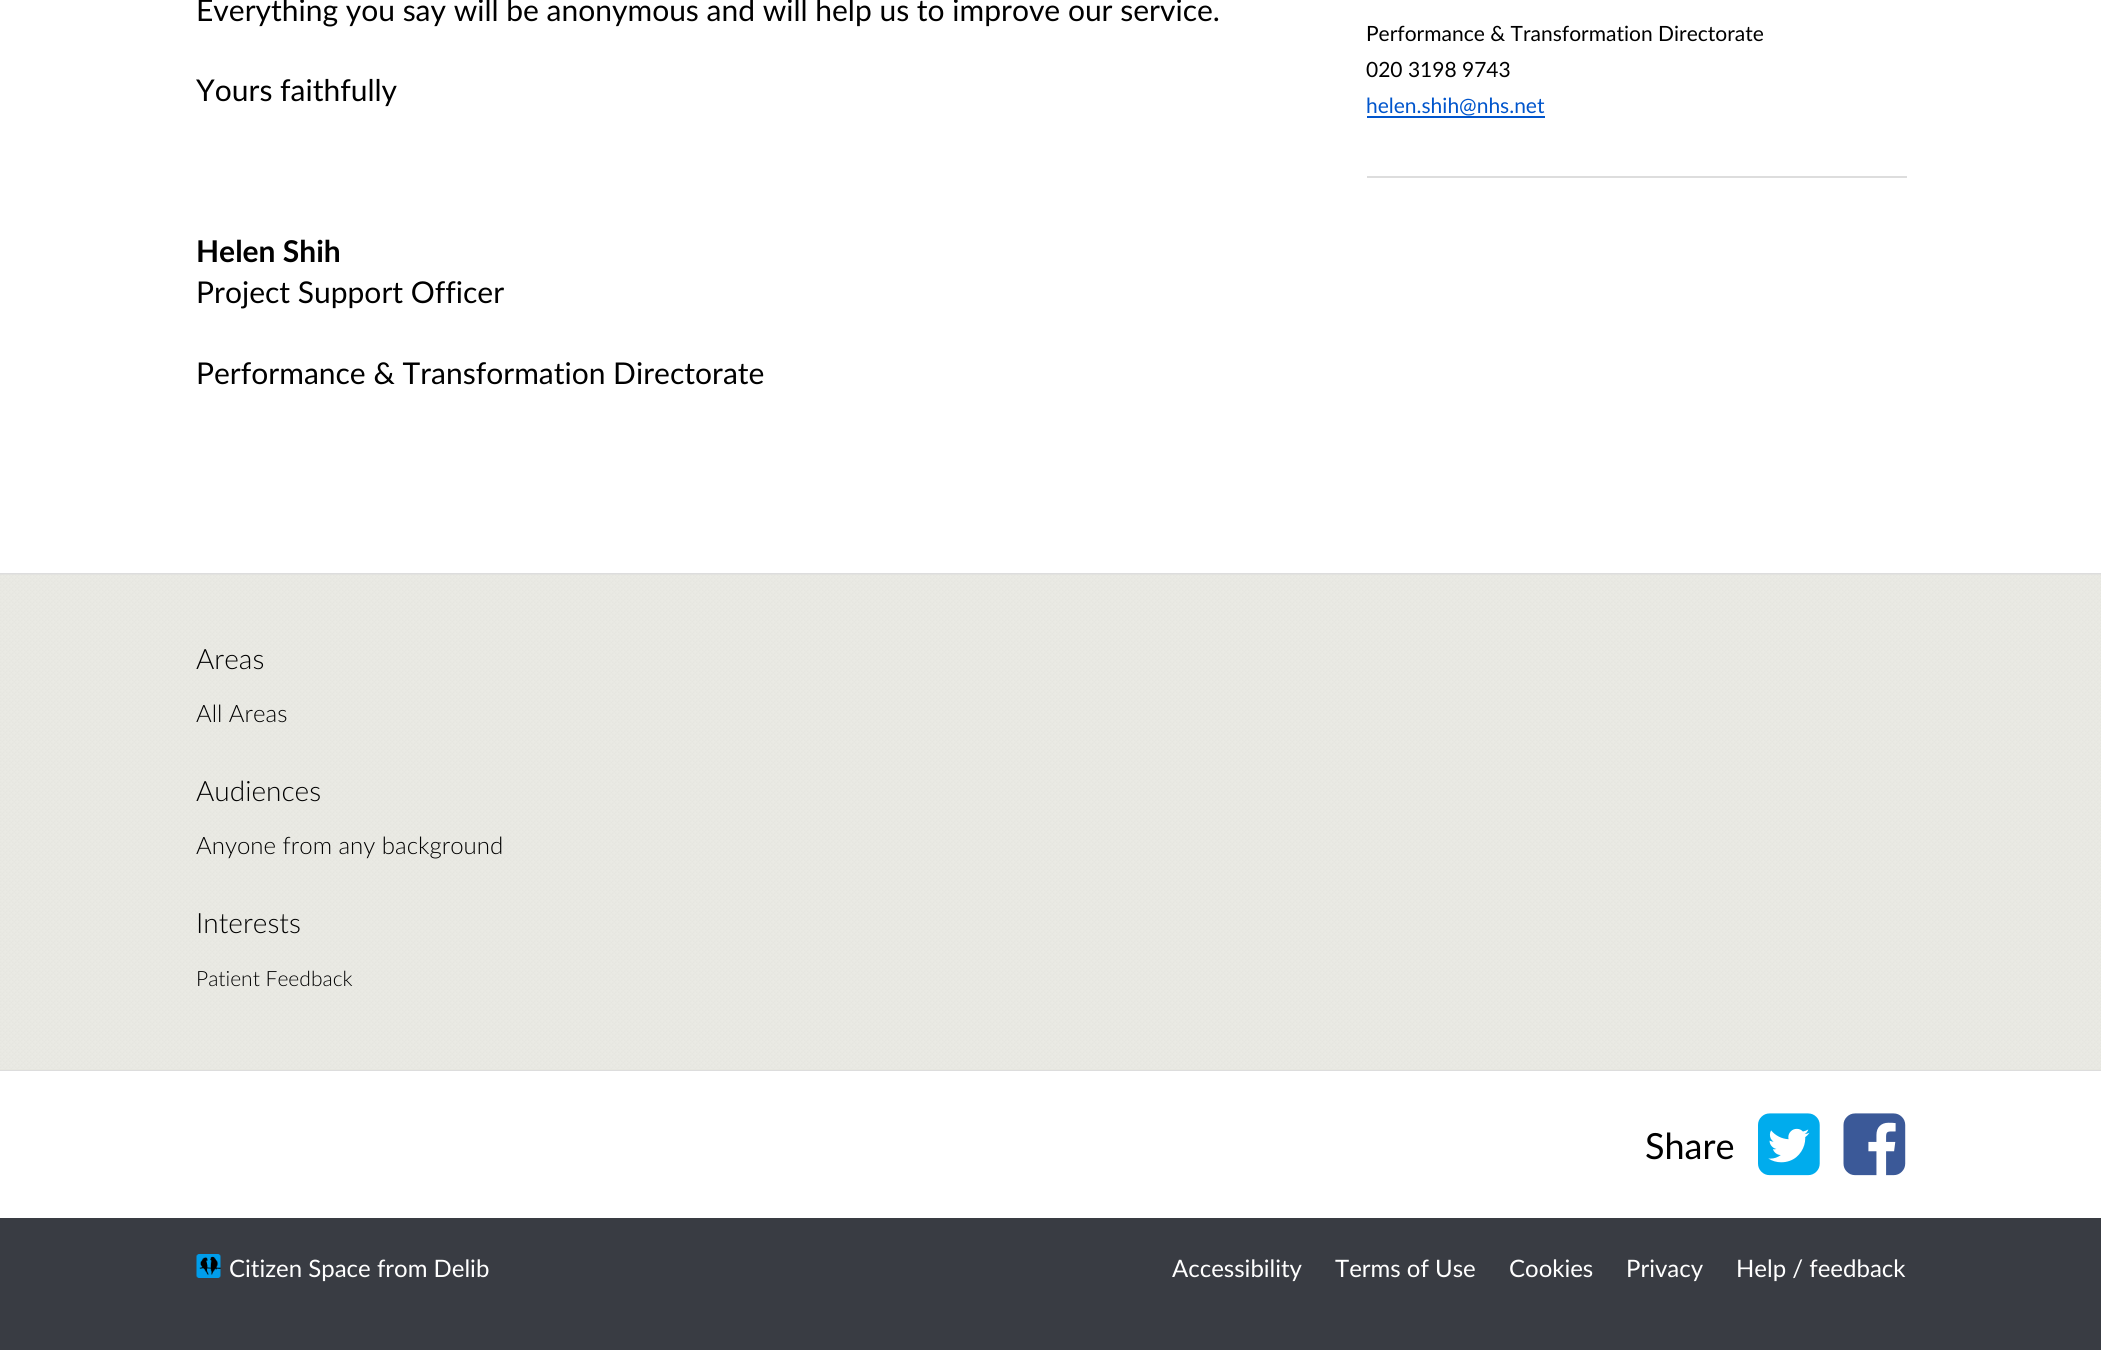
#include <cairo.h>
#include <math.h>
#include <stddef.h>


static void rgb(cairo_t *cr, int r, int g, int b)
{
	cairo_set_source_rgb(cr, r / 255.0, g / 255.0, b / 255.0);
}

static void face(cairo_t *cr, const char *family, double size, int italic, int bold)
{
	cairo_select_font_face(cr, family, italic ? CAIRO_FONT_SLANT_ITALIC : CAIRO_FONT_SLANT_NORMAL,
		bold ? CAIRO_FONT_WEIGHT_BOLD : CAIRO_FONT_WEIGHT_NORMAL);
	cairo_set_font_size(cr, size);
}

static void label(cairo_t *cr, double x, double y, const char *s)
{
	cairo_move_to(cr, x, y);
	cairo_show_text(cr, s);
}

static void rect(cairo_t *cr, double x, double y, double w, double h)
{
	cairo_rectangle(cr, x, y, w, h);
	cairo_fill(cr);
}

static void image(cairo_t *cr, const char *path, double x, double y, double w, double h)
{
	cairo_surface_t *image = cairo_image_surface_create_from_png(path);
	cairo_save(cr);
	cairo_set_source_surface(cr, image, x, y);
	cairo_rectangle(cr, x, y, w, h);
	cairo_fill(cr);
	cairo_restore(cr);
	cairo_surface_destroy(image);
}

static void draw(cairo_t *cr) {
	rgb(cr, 255, 255, 255);
	cairo_paint(cr);
	face(cr, "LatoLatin", 30, 0, 0);
	rgb(cr, 0, 0, 0);
	label(cr, 196, 21, "Everything you say will be anonymous and will help us to improve our service.");
	label(cr, 196, 101, "Yours faithfully");
	face(cr, "LatoLatin", 30, 0, 1);
	label(cr, 196, 262, "Helen Shih");
	face(cr, "LatoLatin", 30, 0, 0);
	label(cr, 196, 303, "Project Support Officer");
	label(cr, 196, 384, "Performance & Transformation Directorate");
	rgb(cr, 221, 221, 221);
	rect(cr, 1367, 176, 540, 2);
	face(cr, "LatoLatin", 21, 0, 0);
	rgb(cr, 0, 0, 0);
	label(cr, 1366, 41, "Performance & Transformation Directorate");
	label(cr, 1366, 77, "020 3198 9743");
	rgb(cr, 0, 85, 204);
	label(cr, 1366, 113, "helen.shih@nhs.net");
	rect(cr, 1367, 116, 178, 2);
	rgb(cr, 221, 221, 221);
	rect(cr, 0, 573, 2101, 2);
	rect(cr, 0, 1070, 2101, 1);
	rgb(cr, 230, 230, 223);
	rect(cr, 0, 1069, 2101, 1);
	image(cr, "image0.png", 0, 574, 2101, 495);
	face(cr, "LatoLatin Light", 28, 0, 0);
	rgb(cr, 0, 0, 0);
	label(cr, 196, 669, "Areas");
	face(cr, "LatoLatin Light", 24, 0, 0);
	label(cr, 196, 722, "All Areas");
	face(cr, "LatoLatin Light", 28, 0, 0);
	label(cr, 196, 801, "Audiences");
	face(cr, "LatoLatin Light", 24, 0, 0);
	label(cr, 196, 854, "Anyone from any background");
	face(cr, "LatoLatin Light", 28, 0, 0);
	label(cr, 196, 933, "Interests");
	face(cr, "LatoLatin Light", 21, 0, 0);
	label(cr, 196, 986, "Patient Feedback");
	face(cr, "LatoLatin", 36, 0, 0);
	label(cr, 1645, 1159, "Share");
	image(cr, "image1.png", 1758, 1113, 62, 63);
	image(cr, "image2.png", 1843, 1113, 63, 63);
	rgb(cr, 57, 60, 67);
	rect(cr, 0, 1218, 2101, 132);
	image(cr, "image3.png", 196, 1254, 25, 24);
	face(cr, "LatoLatin", 24, 0, 0);
	rgb(cr, 255, 255, 255);
	label(cr, 229, 1277, "Citizen Space from Delib");
	label(cr, 1172, 1277, "Accessibility");
	label(cr, 1335, 1277, "Terms of Use");
	label(cr, 1509, 1277, "Cookies");
	label(cr, 1626, 1277, "Privacy");
	label(cr, 1736, 1277, "Help / feedback");
}

int main(void) {
	cairo_surface_t *surface = cairo_image_surface_create(CAIRO_FORMAT_RGB24, 2101, 1350);
	cairo_t *cr = cairo_create(surface);
	cairo_font_options_t *options = cairo_font_options_create();
	cairo_font_options_set_hint_metrics(options, CAIRO_HINT_METRICS_OFF);
	cairo_font_options_set_hint_style(options, CAIRO_HINT_STYLE_NONE);
	cairo_set_font_options(cr, options);
	cairo_set_miter_limit(cr, 4);
	draw(cr);
	cairo_surface_write_to_png(surface, "render.png");
	cairo_font_options_destroy(options);
	cairo_destroy(cr);
	cairo_surface_destroy(surface);
	return 0;
}
